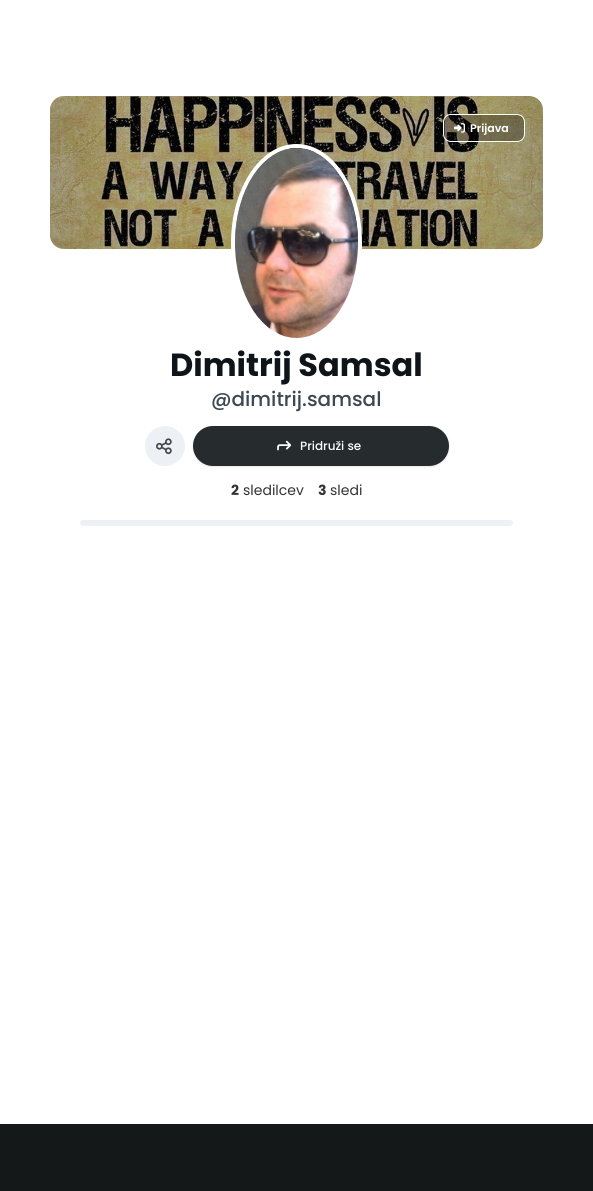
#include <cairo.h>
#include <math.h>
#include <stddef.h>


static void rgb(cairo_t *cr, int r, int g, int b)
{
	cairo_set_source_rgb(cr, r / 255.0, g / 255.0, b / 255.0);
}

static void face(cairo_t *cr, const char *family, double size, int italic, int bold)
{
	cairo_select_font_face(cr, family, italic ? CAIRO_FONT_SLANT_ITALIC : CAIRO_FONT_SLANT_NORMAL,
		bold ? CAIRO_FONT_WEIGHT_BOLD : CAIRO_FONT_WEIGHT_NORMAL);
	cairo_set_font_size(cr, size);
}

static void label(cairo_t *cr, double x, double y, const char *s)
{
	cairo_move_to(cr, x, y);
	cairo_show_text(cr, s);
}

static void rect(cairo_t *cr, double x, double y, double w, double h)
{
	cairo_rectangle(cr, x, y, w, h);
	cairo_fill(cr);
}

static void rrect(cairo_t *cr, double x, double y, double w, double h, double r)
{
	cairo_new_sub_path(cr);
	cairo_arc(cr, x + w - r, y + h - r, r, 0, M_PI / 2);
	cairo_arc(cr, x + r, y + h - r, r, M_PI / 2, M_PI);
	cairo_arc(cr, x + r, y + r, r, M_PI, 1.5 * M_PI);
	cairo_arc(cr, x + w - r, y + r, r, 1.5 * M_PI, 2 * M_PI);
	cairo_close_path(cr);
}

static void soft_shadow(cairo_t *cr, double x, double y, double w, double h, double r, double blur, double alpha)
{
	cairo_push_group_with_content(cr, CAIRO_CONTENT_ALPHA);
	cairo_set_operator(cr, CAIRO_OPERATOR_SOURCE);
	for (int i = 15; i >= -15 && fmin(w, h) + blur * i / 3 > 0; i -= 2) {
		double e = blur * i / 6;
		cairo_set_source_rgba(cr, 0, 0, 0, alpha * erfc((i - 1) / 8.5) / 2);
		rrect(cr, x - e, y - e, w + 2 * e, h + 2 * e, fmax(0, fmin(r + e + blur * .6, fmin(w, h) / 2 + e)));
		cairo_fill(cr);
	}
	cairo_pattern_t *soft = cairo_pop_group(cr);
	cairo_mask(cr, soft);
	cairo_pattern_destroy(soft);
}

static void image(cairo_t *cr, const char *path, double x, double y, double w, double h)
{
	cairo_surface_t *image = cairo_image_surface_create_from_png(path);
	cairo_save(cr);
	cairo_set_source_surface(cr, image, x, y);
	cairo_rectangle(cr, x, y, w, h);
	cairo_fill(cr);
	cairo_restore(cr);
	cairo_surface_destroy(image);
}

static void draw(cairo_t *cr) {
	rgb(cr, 255, 255, 255);
	cairo_paint(cr);
	image(cr, "image0.png", 50, 96, 493, 153);
	cairo_set_source_rgba(cr, 0, 0, 0, 0.3);
	rrect(cr, 50, 96, 493, 153, 14);
	cairo_fill(cr);
	rrect(cr, 443.5, 114.5, 81, 27, 7.5);
	cairo_fill_preserve(cr);
	rgb(cr, 255, 255, 255);
	cairo_set_line_width(cr, 1);
	cairo_stroke(cr);
	image(cr, "image1.png", 454, 123, 11, 10);
	face(cr, "Poppins SemiBold", 11, 0, 0);
	label(cr, 470, 132, "Prijava");
	cairo_new_path(cr);
	cairo_move_to(cr, 296.5, 146);
	cairo_curve_to(cr, 331.5, 146, 360, 189.5, 360, 243);
	cairo_curve_to(cr, 360, 296.5, 331.5, 340, 296.5, 340);
	cairo_curve_to(cr, 261.5, 340, 233, 296.5, 233, 243);
	cairo_curve_to(cr, 233, 189.5, 261.5, 146, 296.5, 146);
	cairo_close_path(cr);
	cairo_set_line_width(cr, 4);
	cairo_stroke(cr);
	image(cr, "image2.png", 235, 148, 123, 190);
	face(cr, "Poppins", 32, 0, 1);
	rgb(cr, 15, 20, 25);
	label(cr, 170, 376, "Dimitrij Samsal");
	face(cr, "Poppins Medium", 20, 0, 0);
	rgb(cr, 59, 71, 83);
	label(cr, 211, 406, "@dimitrij.samsal");
	rgb(cr, 237, 241, 246);
	cairo_new_path(cr);
	cairo_arc(cr, 165, 446, 20, 0, 2 * M_PI);
	cairo_fill(cr);
	image(cr, "image3.png", 156, 438, 16, 17);
	rgb(cr, 0, 0, 0);
	soft_shadow(cr, 193, 427, 256, 40, 20, 1, 0.1);
	rgb(cr, 38, 43, 46);
	rrect(cr, 193, 426, 256, 40, 20);
	cairo_fill(cr);
	image(cr, "image4.png", 277, 440, 15, 11);
	face(cr, "Poppins Medium", 12, 0, 0);
	rgb(cr, 255, 255, 255);
	label(cr, 300, 450, "Pridruži se");
	face(cr, "Poppins", 14, 0, 1);
	rgb(cr, 50, 50, 50);
	label(cr, 231, 495, "2");
	face(cr, "Poppins", 14, 0, 0);
	label(cr, 243, 495, "sledilcev");
	face(cr, "Poppins", 14, 0, 1);
	label(cr, 318, 495, "3");
	face(cr, "Poppins", 14, 0, 0);
	label(cr, 330, 495, "sledi");
	rgb(cr, 237, 241, 246);
	rrect(cr, 80, 520, 433, 6, 3);
	cairo_fill(cr);
	rgb(cr, 20, 24, 25);
	rect(cr, 0, 1124, 593, 67);
}

int main(void) {
	cairo_surface_t *surface = cairo_image_surface_create(CAIRO_FORMAT_RGB24, 593, 1191);
	cairo_t *cr = cairo_create(surface);
	cairo_font_options_t *options = cairo_font_options_create();
	cairo_font_options_set_hint_metrics(options, CAIRO_HINT_METRICS_OFF);
	cairo_font_options_set_hint_style(options, CAIRO_HINT_STYLE_NONE);
	cairo_set_font_options(cr, options);
	cairo_set_miter_limit(cr, 4);
	draw(cr);
	cairo_surface_write_to_png(surface, "render.png");
	cairo_font_options_destroy(options);
	cairo_destroy(cr);
	cairo_surface_destroy(surface);
	return 0;
}
